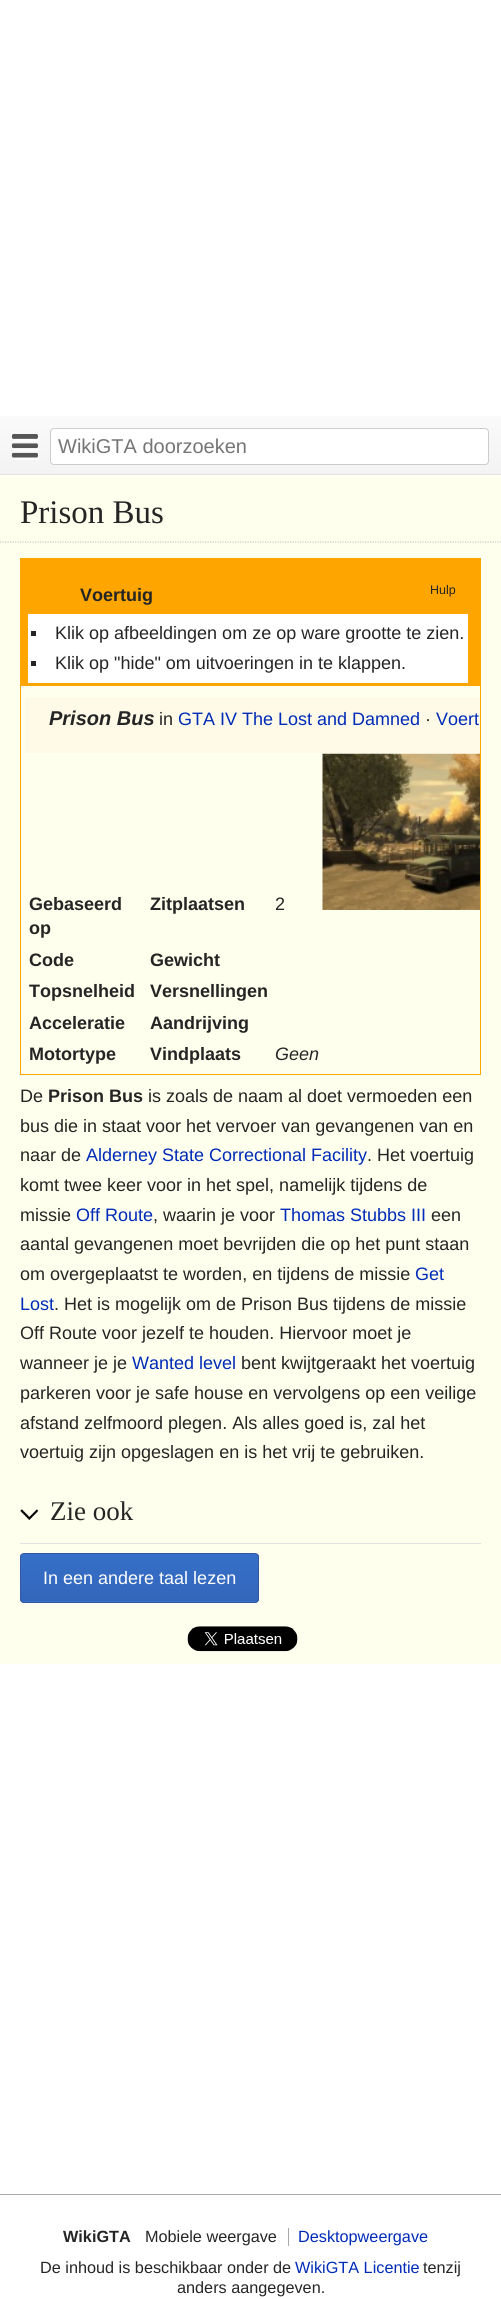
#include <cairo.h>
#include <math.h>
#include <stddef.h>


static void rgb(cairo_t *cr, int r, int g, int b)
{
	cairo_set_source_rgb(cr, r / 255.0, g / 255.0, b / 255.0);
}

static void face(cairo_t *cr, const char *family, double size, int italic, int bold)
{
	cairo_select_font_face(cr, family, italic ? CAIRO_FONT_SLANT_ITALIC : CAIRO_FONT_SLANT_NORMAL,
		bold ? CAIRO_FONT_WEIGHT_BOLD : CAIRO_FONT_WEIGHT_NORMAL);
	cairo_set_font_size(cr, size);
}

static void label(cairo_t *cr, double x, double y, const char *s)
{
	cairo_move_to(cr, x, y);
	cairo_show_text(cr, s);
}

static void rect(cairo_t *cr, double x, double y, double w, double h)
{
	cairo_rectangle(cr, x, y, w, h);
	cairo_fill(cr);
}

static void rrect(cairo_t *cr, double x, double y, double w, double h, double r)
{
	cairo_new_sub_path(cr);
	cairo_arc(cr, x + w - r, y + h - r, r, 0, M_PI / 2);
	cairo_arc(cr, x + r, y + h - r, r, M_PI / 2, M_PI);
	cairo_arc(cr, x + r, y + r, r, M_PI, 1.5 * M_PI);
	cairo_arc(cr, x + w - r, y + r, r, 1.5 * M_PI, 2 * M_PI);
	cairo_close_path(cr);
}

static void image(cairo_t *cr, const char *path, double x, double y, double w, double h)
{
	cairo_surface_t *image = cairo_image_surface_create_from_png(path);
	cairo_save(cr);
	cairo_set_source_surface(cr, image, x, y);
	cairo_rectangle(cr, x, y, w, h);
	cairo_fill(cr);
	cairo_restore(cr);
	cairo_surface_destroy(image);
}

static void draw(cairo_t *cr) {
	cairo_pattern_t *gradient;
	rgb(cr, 255, 255, 255);
	cairo_paint(cr);
	gradient = cairo_pattern_create_linear(251, 416, 251, 474);
	cairo_pattern_add_color_stop_rgba(gradient, 0, 0.98, 0.98, 0.98, 1);
	cairo_pattern_add_color_stop_rgba(gradient, 1, 0.953, 0.953, 0.953, 1);
	cairo_set_source(cr, gradient);
	cairo_pattern_destroy(gradient);
	rect(cr, 0, 416, 501, 58);
	rgb(cr, 226, 226, 226);
	rect(cr, 0, 474, 501, 1);
	image(cr, "image0.png", 11, 434, 28, 26);
	rgb(cr, 255, 255, 255);
	rrect(cr, 50.5, 428.5, 438, 36, 3.5);
	cairo_fill_preserve(cr);
	rgb(cr, 204, 204, 204);
	cairo_set_line_width(cr, 1);
	cairo_stroke(cr);
	face(cr, "Liberation Sans", 20, 0, 0);
	rgb(cr, 117, 117, 117);
	label(cr, 58, 453, "WikiGTA doorzoeken");
	rgb(cr, 255, 255, 237);
	rect(cr, 0, 475, 501, 1189);
	cairo_new_path(cr);
	cairo_move_to(cr, 0, 542);
	cairo_line_to(cr, 501, 542);
	rgb(cr, 202, 202, 202);
	cairo_set_line_width(cr, 1.2);
	cairo_set_dash(cr, (double[]){1.25, 1.25}, 2, 0);
	cairo_stroke(cr);
	face(cr, "Liberation Serif", 33, 0, 0);
	rgb(cr, 37, 37, 37);
	label(cr, 20, 523, "Prison Bus");
	cairo_rectangle(cr, 20.5, 558.5, 460, 516);
	rgb(cr, 255, 165, 0);
	cairo_set_line_width(cr, 1);
	cairo_set_dash(cr, NULL, 0, 0);
	cairo_stroke(cr);
	rect(cr, 21, 559, 459, 127);
	face(cr, "Liberation Sans", 18, 0, 1);
	rgb(cr, 37, 37, 37);
	label(cr, 80, 601, "Voertuig");
	face(cr, "Liberation Sans", 12.5, 0, 0);
	label(cr, 430, 594, "Hulp");
	rgb(cr, 255, 255, 255);
	rect(cr, 28, 614, 440, 69);
	rgb(cr, 37, 37, 37);
	rect(cr, 31, 631, 5, 5);
	face(cr, "Liberation Sans", 18, 0, 0);
	label(cr, 55, 639, "Klik op afbeeldingen om ze op ware grootte te zien.");
	rect(cr, 31, 661, 5, 5);
	label(cr, 55, 669, "Klik op \"hide\" om uitvoeringen in te klappen.");
	rgb(cr, 254, 250, 231);
	rect(cr, 25, 698, 455, 55);
	face(cr, "Liberation Sans", 20, 1, 1);
	rgb(cr, 37, 37, 37);
	label(cr, 49, 725, "Prison Bus");
	face(cr, "Liberation Sans", 18, 0, 0);
	label(cr, 159, 725, "in");
	rgb(cr, 0, 43, 184);
	label(cr, 178, 725, "GTA IV The Lost and Damned");
	rgb(cr, 37, 37, 37);
	label(cr, 425, 725, "·");
	rgb(cr, 0, 43, 184);
	label(cr, 436, 725, "Voert");
	image(cr, "image1.png", 322, 753, 158, 157);
	face(cr, "Liberation Sans", 18, 0, 1);
	rgb(cr, 37, 37, 37);
	label(cr, 29, 910, "Gebaseerd");
	label(cr, 29, 934, "op");
	label(cr, 150, 910, "Zitplaatsen");
	face(cr, "Liberation Sans", 18, 0, 0);
	label(cr, 275, 910, "2");
	face(cr, "Liberation Sans", 18, 0, 1);
	label(cr, 29, 966, "Code");
	label(cr, 150, 966, "Gewicht");
	label(cr, 29, 997, "Topsnelheid");
	label(cr, 150, 997, "Versnellingen");
	label(cr, 29, 1029, "Acceleratie");
	label(cr, 150, 1029, "Aandrijving");
	label(cr, 29, 1060, "Motortype");
	label(cr, 150, 1060, "Vindplaats");
	face(cr, "Liberation Sans", 18, 1, 0);
	label(cr, 275, 1060, "Geen");
	face(cr, "Liberation Sans", 18, 0, 0);
	label(cr, 20, 1102, "De");
	face(cr, "Liberation Sans", 18, 0, 1);
	label(cr, 48, 1102, "Prison Bus");
	face(cr, "Liberation Sans", 18, 0, 0);
	label(cr, 148, 1102, "is zoals de naam al doet vermoeden een");
	label(cr, 20, 1132, "bus die in staat voor het vervoer van gevangenen van en");
	label(cr, 20, 1161, "naar de");
	rgb(cr, 0, 43, 184);
	label(cr, 86, 1161, "Alderney State Correctional Facility");
	rgb(cr, 37, 37, 37);
	label(cr, 367, 1161, ". Het voertuig");
	label(cr, 20, 1191, "komt twee keer voor in het spel, namelijk tijdens de");
	label(cr, 20, 1221, "missie");
	rgb(cr, 0, 43, 184);
	label(cr, 76, 1221, "Off Route");
	rgb(cr, 37, 37, 37);
	label(cr, 153, 1221, ", waarin je voor");
	rgb(cr, 0, 43, 184);
	label(cr, 280, 1221, "Thomas Stubbs III");
	rgb(cr, 37, 37, 37);
	label(cr, 431, 1221, "een");
	label(cr, 20, 1250, "aantal gevangenen moet bevrijden die op het punt staan");
	label(cr, 20, 1280, "om overgeplaatst te worden, en tijdens de missie");
	rgb(cr, 0, 43, 184);
	label(cr, 415, 1280, "Get");
	label(cr, 20, 1310, "Lost");
	rgb(cr, 37, 37, 37);
	label(cr, 54, 1310, ". Het is mogelijk om de Prison Bus tijdens de missie");
	label(cr, 20, 1339, "Off Route voor jezelf te houden. Hiervoor moet je");
	label(cr, 20, 1369, "wanneer je je");
	rgb(cr, 0, 43, 184);
	label(cr, 132, 1369, "Wanted level");
	rgb(cr, 37, 37, 37);
	label(cr, 241, 1369, "bent kwijtgeraakt het voertuig");
	label(cr, 20, 1399, "parkeren voor je safe house en vervolgens op een veilige");
	label(cr, 20, 1429, "afstand zelfmoord plegen. Als alles goed is, zal het");
	label(cr, 20, 1458, "voertuig zijn opgeslagen en is het vrij te gebruiken.");
	image(cr, "image2.png", 20, 1509, 19, 11);
	rgb(cr, 226, 227, 228);
	rect(cr, 20, 1543, 461, 1);
	face(cr, "Liberation Serif", 27, 0, 0);
	rgb(cr, 37, 37, 37);
	label(cr, 50, 1520, "Zie ook");
	cairo_save(cr);
	rrect(cr, 20, 1553, 239, 50, 4);
	cairo_clip(cr);
	gradient = cairo_pattern_create_linear(139, 1554, 139, 1601);
	cairo_pattern_add_color_stop_rgba(gradient, 0, 0.212, 0.439, 0.784, 1);
	cairo_pattern_add_color_stop_rgba(gradient, 1, 0.2, 0.4, 0.733, 1);
	cairo_set_source(cr, gradient);
	cairo_pattern_destroy(gradient);
	rect(cr, 20, 1554, 239, 47);
	gradient = cairo_pattern_create_linear(139, 1601, 139, 1649);
	cairo_pattern_add_color_stop_rgba(gradient, 0, 0.212, 0.439, 0.784, 1);
	cairo_pattern_add_color_stop_rgba(gradient, 1, 0.2, 0.4, 0.733, 1);
	cairo_set_source(cr, gradient);
	cairo_pattern_destroy(gradient);
	rect(cr, 20, 1601, 239, 2);
	cairo_restore(cr);
	rrect(cr, 20.5, 1553.5, 238, 49, 3.5);
	rgb(cr, 51, 88, 159);
	cairo_stroke(cr);
	face(cr, "Liberation Sans", 18, 0, 0);
	rgb(cr, 255, 255, 255);
	label(cr, 43, 1584, "In een andere taal lezen");
	image(cr, "image3.png", 187, 1626, 111, 26);
	rgb(cr, 170, 170, 170);
	rect(cr, 0, 2194, 501, 1);
	face(cr, "Liberation Sans", 16.25, 0, 1);
	rgb(cr, 37, 37, 37);
	label(cr, 63, 2242, "WikiGTA");
	face(cr, "Liberation Sans", 16.25, 0, 0);
	label(cr, 145, 2242, "Mobiele weergave");
	rgb(cr, 0, 43, 184);
	label(cr, 298, 2242, "Desktopweergave");
	rgb(cr, 170, 170, 170);
	rect(cr, 288, 2228, 1, 18);
	rgb(cr, 37, 37, 37);
	label(cr, 40, 2273, "De inhoud is beschikbaar onder de");
	rgb(cr, 0, 43, 184);
	label(cr, 295, 2273, "WikiGTA Licentie");
	rgb(cr, 37, 37, 37);
	label(cr, 423, 2273, "tenzij");
	label(cr, 177, 2293, "anders aangegeven.");
}

int main(void) {
	cairo_surface_t *surface = cairo_image_surface_create(CAIRO_FORMAT_RGB24, 501, 2299);
	cairo_t *cr = cairo_create(surface);
	cairo_font_options_t *options = cairo_font_options_create();
	cairo_font_options_set_hint_metrics(options, CAIRO_HINT_METRICS_OFF);
	cairo_font_options_set_hint_style(options, CAIRO_HINT_STYLE_NONE);
	cairo_set_font_options(cr, options);
	cairo_set_miter_limit(cr, 4);
	draw(cr);
	cairo_surface_write_to_png(surface, "render.png");
	cairo_font_options_destroy(options);
	cairo_destroy(cr);
	cairo_surface_destroy(surface);
	return 0;
}
